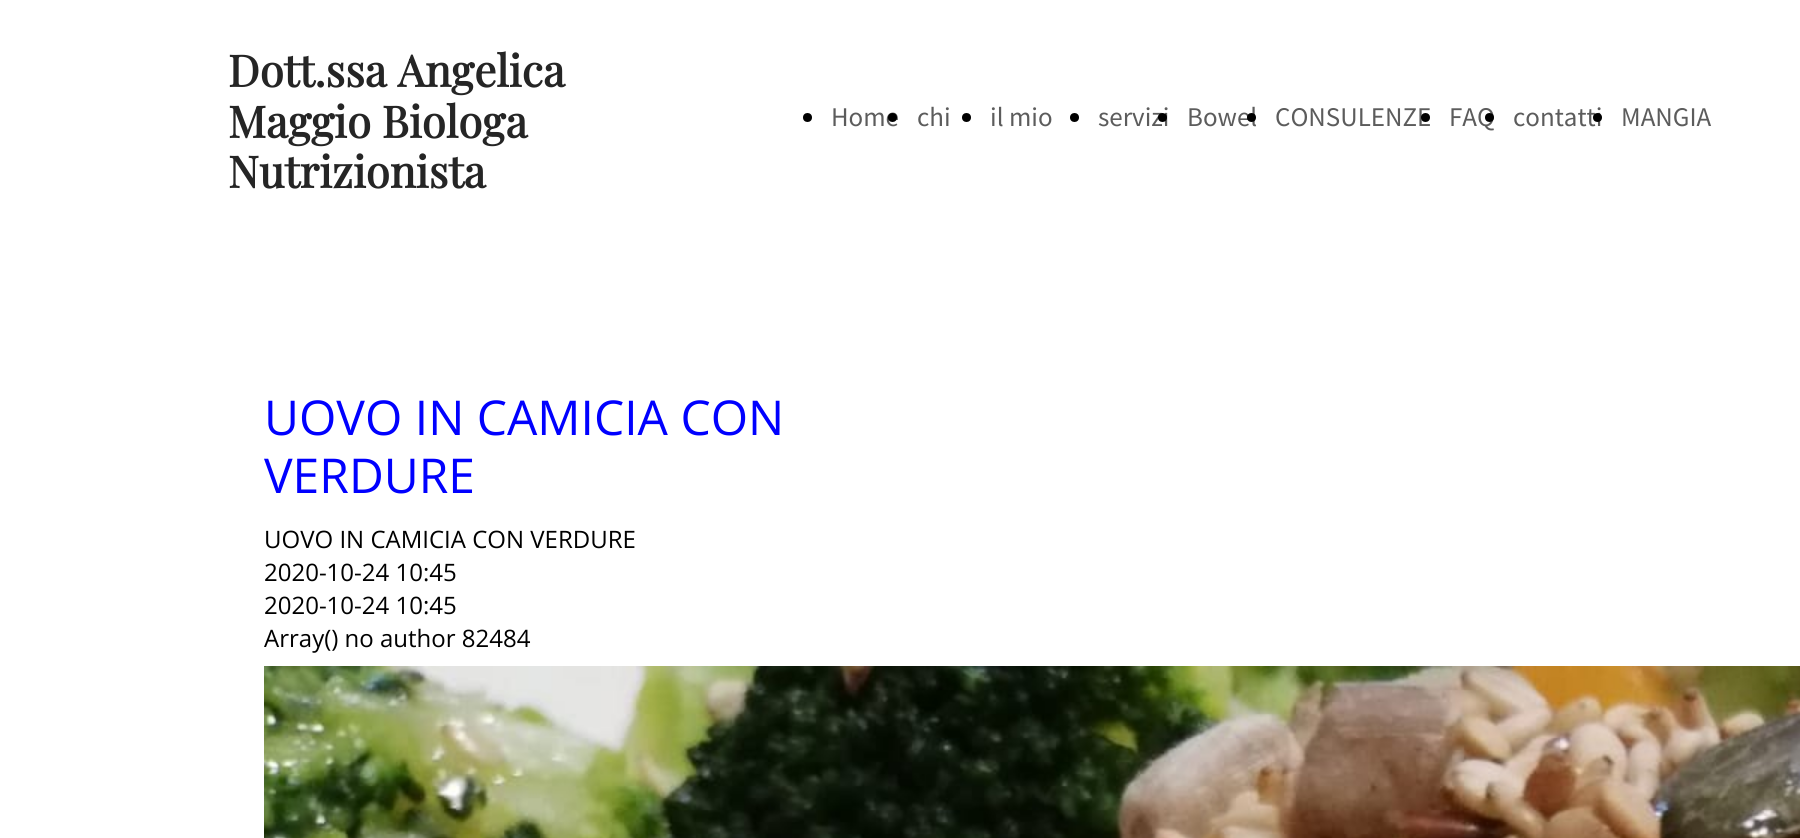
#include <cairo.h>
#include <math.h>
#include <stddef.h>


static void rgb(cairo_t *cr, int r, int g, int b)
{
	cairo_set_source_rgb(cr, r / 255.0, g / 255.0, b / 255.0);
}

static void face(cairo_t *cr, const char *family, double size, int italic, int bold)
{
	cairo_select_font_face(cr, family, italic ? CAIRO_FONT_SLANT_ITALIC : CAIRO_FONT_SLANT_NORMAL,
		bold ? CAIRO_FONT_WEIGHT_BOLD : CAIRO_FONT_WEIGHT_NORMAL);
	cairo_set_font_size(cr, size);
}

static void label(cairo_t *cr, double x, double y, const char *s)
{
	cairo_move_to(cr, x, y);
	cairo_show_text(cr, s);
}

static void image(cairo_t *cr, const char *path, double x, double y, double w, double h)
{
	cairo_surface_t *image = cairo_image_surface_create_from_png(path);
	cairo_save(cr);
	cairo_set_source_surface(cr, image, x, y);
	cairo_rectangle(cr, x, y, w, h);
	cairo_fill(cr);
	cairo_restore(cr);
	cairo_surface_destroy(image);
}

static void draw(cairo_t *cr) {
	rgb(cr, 255, 255, 255);
	cairo_paint(cr);
	face(cr, "Playfair Display", 43.75, 0, 1);
	rgb(cr, 37, 37, 37);
	label(cr, 228, 87, "Dott.ssa Angelica");
	label(cr, 228, 138, "Maggio Biologa");
	label(cr, 228, 188, "Nutrizionista");
	rgb(cr, 0, 0, 0);
	cairo_new_path(cr);
	cairo_arc(cr, 807.5, 117.5, 4.5, 0, 2 * M_PI);
	cairo_fill(cr);
	face(cr, "Source Sans Pro", 27, 0, 0);
	rgb(cr, 92, 92, 92);
	label(cr, 831, 126, "Home");
	rgb(cr, 0, 0, 0);
	cairo_new_path(cr);
	cairo_arc(cr, 892.5, 117.5, 4.5, 0, 2 * M_PI);
	cairo_fill(cr);
	rgb(cr, 92, 92, 92);
	label(cr, 917, 126, "chi");
	rgb(cr, 0, 0, 0);
	cairo_new_path(cr);
	cairo_arc(cr, 966.5, 117.5, 4.5, 0, 2 * M_PI);
	cairo_fill(cr);
	rgb(cr, 92, 92, 92);
	label(cr, 990, 126, "il mio");
	rgb(cr, 0, 0, 0);
	cairo_new_path(cr);
	cairo_arc(cr, 1074.5, 117.5, 4.5, 0, 2 * M_PI);
	cairo_fill(cr);
	rgb(cr, 92, 92, 92);
	label(cr, 1098, 126, "servizi");
	rgb(cr, 0, 0, 0);
	cairo_new_path(cr);
	cairo_arc(cr, 1162.5, 117.5, 4.5, 0, 2 * M_PI);
	cairo_fill(cr);
	rgb(cr, 92, 92, 92);
	label(cr, 1187, 126, "Bowel");
	rgb(cr, 0, 0, 0);
	cairo_new_path(cr);
	cairo_arc(cr, 1251.5, 117.5, 4.5, 0, 2 * M_PI);
	cairo_fill(cr);
	rgb(cr, 92, 92, 92);
	label(cr, 1275, 126, "CONSULENZE");
	rgb(cr, 0, 0, 0);
	cairo_new_path(cr);
	cairo_arc(cr, 1425.5, 117.5, 4.5, 0, 2 * M_PI);
	cairo_fill(cr);
	rgb(cr, 92, 92, 92);
	label(cr, 1449, 126, "FAQ");
	rgb(cr, 0, 0, 0);
	cairo_new_path(cr);
	cairo_arc(cr, 1489.5, 117.5, 4.5, 0, 2 * M_PI);
	cairo_fill(cr);
	rgb(cr, 92, 92, 92);
	label(cr, 1513, 126, "contatti");
	rgb(cr, 0, 0, 0);
	cairo_new_path(cr);
	cairo_arc(cr, 1597.5, 117.5, 4.5, 0, 2 * M_PI);
	cairo_fill(cr);
	rgb(cr, 92, 92, 92);
	label(cr, 1621, 126, "MANGIA");
	face(cr, "Open Sans", 48, 0, 0);
	rgb(cr, 0, 0, 255);
	label(cr, 264, 435, "UOVO IN CAMICIA CON");
	label(cr, 264, 493, "VERDURE");
	face(cr, "Open Sans", 24, 0, 0);
	rgb(cr, 0, 0, 0);
	label(cr, 264, 548, "UOVO IN CAMICIA CON VERDURE");
	label(cr, 264, 581, "2020-10-24 10:45");
	label(cr, 264, 614, "2020-10-24 10:45");
	label(cr, 264, 647, "Array() no author 82484");
	image(cr, "image0.png", 264, 666, 1536, 172);
}

int main(void) {
	cairo_surface_t *surface = cairo_image_surface_create(CAIRO_FORMAT_RGB24, 1800, 838);
	cairo_t *cr = cairo_create(surface);
	cairo_font_options_t *options = cairo_font_options_create();
	cairo_font_options_set_hint_metrics(options, CAIRO_HINT_METRICS_OFF);
	cairo_font_options_set_hint_style(options, CAIRO_HINT_STYLE_NONE);
	cairo_set_font_options(cr, options);
	cairo_set_miter_limit(cr, 4);
	draw(cr);
	cairo_surface_write_to_png(surface, "render.png");
	cairo_font_options_destroy(options);
	cairo_destroy(cr);
	cairo_surface_destroy(surface);
	return 0;
}
